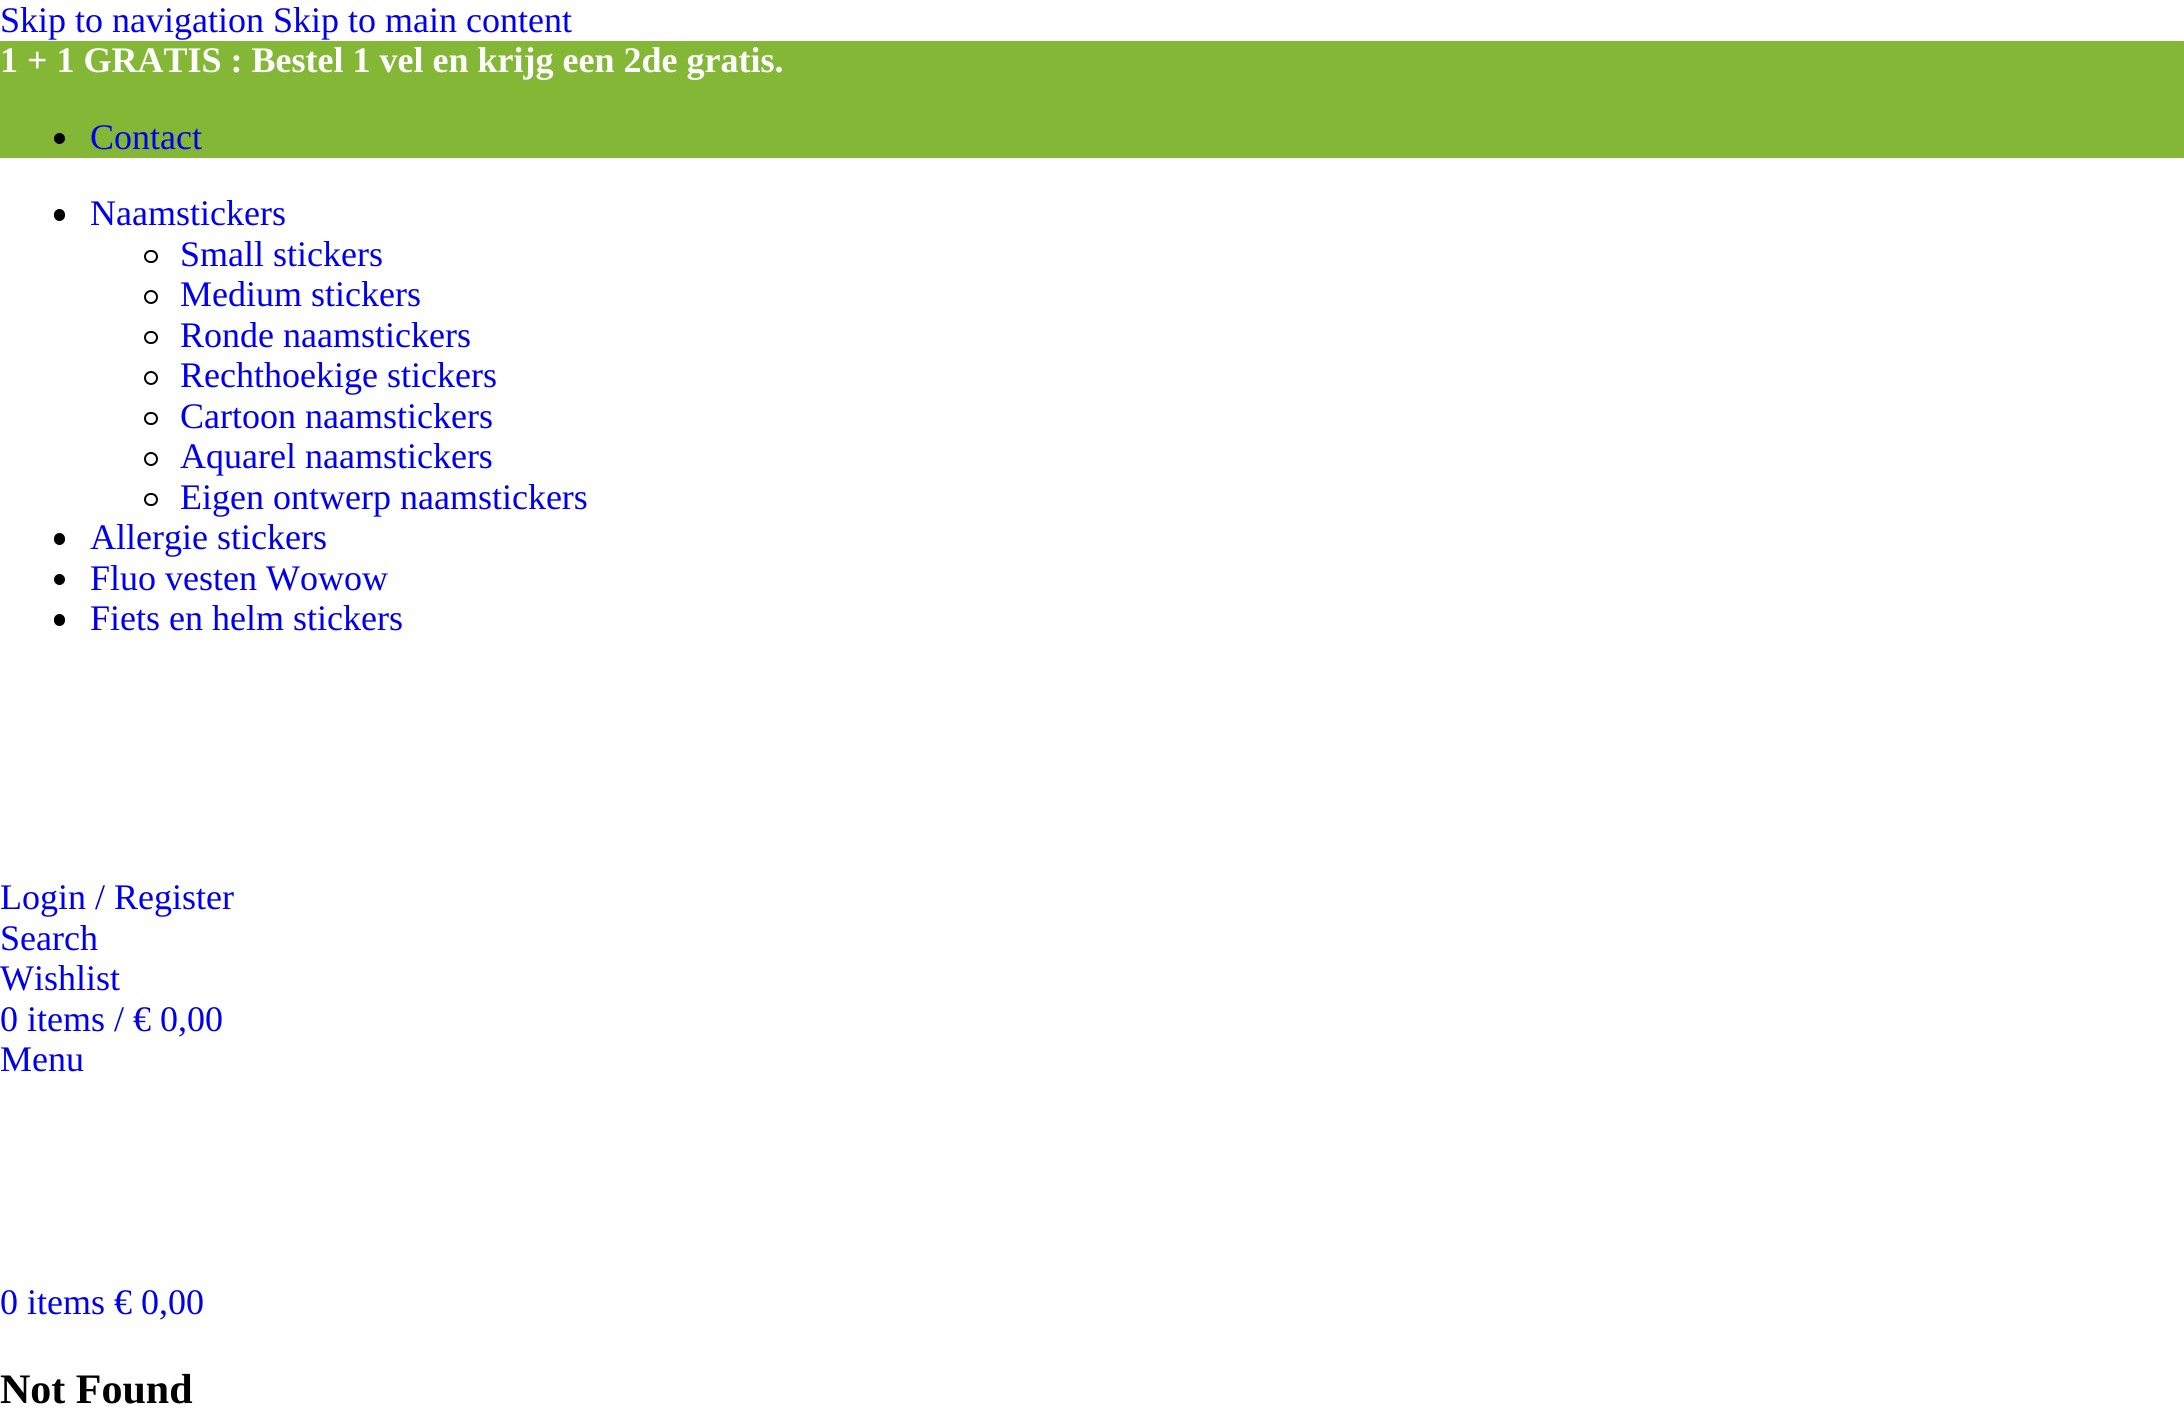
#include <cairo.h>
#include <math.h>
#include <stddef.h>


static void rgb(cairo_t *cr, int r, int g, int b)
{
	cairo_set_source_rgb(cr, r / 255.0, g / 255.0, b / 255.0);
}

static void face(cairo_t *cr, const char *family, double size, int italic, int bold)
{
	cairo_select_font_face(cr, family, italic ? CAIRO_FONT_SLANT_ITALIC : CAIRO_FONT_SLANT_NORMAL,
		bold ? CAIRO_FONT_WEIGHT_BOLD : CAIRO_FONT_WEIGHT_NORMAL);
	cairo_set_font_size(cr, size);
}

static void label(cairo_t *cr, double x, double y, const char *s)
{
	cairo_move_to(cr, x, y);
	cairo_show_text(cr, s);
}

static void rect(cairo_t *cr, double x, double y, double w, double h)
{
	cairo_rectangle(cr, x, y, w, h);
	cairo_fill(cr);
}

static void rrect(cairo_t *cr, double x, double y, double w, double h, double r)
{
	cairo_new_sub_path(cr);
	cairo_arc(cr, x + w - r, y + h - r, r, 0, M_PI / 2);
	cairo_arc(cr, x + r, y + h - r, r, M_PI / 2, M_PI);
	cairo_arc(cr, x + r, y + r, r, M_PI, 1.5 * M_PI);
	cairo_arc(cr, x + w - r, y + r, r, 1.5 * M_PI, 2 * M_PI);
	cairo_close_path(cr);
}

static void draw(cairo_t *cr) {
	rgb(cr, 255, 255, 255);
	cairo_paint(cr);
	face(cr, "Liberation Serif", 36, 0, 0);
	rgb(cr, 0, 0, 238);
	label(cr, 0, 32, "Skip to navigation Skip to main content");
	rgb(cr, 131, 183, 53);
	rect(cr, 0, 41, 2184, 117);
	face(cr, "Liberation Serif", 36, 0, 1);
	rgb(cr, 255, 255, 255);
	label(cr, 0, 72, "1 + 1 GRATIS : Bestel 1 vel en krijg een 2de gratis.");
	rgb(cr, 0, 0, 0);
	cairo_new_path(cr);
	cairo_arc(cr, 59.5, 138.5, 5.5, 0, 2 * M_PI);
	cairo_fill(cr);
	face(cr, "Liberation Serif", 36, 0, 0);
	rgb(cr, 0, 0, 238);
	label(cr, 90, 149, "Contact");
	rgb(cr, 0, 0, 0);
	rrect(cr, 54, 209, 11, 12, 5.5);
	cairo_fill(cr);
	rgb(cr, 0, 0, 238);
	label(cr, 90, 225, "Naamstickers");
	rrect(cr, 145, 251, 12, 11, 5.5);
	rgb(cr, 0, 0, 0);
	cairo_stroke(cr);
	rgb(cr, 0, 0, 238);
	label(cr, 180, 266, "Small stickers");
	cairo_new_path(cr);
	cairo_arc(cr, 151, 297, 6, 0, 2 * M_PI);
	rgb(cr, 0, 0, 0);
	cairo_stroke(cr);
	rgb(cr, 0, 0, 238);
	label(cr, 180, 306, "Medium stickers");
	rrect(cr, 145, 332, 12, 11, 5.5);
	rgb(cr, 0, 0, 0);
	cairo_stroke(cr);
	rgb(cr, 0, 0, 238);
	label(cr, 180, 347, "Ronde naamstickers");
	cairo_new_path(cr);
	cairo_arc(cr, 151, 378, 6, 0, 2 * M_PI);
	rgb(cr, 0, 0, 0);
	cairo_stroke(cr);
	rgb(cr, 0, 0, 238);
	label(cr, 180, 387, "Rechthoekige stickers");
	rrect(cr, 145, 413, 12, 11, 5.5);
	rgb(cr, 0, 0, 0);
	cairo_stroke(cr);
	rgb(cr, 0, 0, 238);
	label(cr, 180, 428, "Cartoon naamstickers");
	cairo_new_path(cr);
	cairo_arc(cr, 151, 459, 6, 0, 2 * M_PI);
	rgb(cr, 0, 0, 0);
	cairo_stroke(cr);
	rgb(cr, 0, 0, 238);
	label(cr, 180, 468, "Aquarel naamstickers");
	rrect(cr, 145, 494, 12, 11, 5.5);
	rgb(cr, 0, 0, 0);
	cairo_stroke(cr);
	rgb(cr, 0, 0, 238);
	label(cr, 180, 509, "Eigen ontwerp naamstickers");
	rgb(cr, 0, 0, 0);
	rrect(cr, 54, 533, 11, 12, 5.5);
	cairo_fill(cr);
	rgb(cr, 0, 0, 238);
	label(cr, 90, 549, "Allergie stickers");
	rgb(cr, 0, 0, 0);
	cairo_new_path(cr);
	cairo_arc(cr, 59.5, 579.5, 5.5, 0, 2 * M_PI);
	cairo_fill(cr);
	rgb(cr, 0, 0, 238);
	label(cr, 90, 590, "Fluo vesten Wowow");
	rgb(cr, 0, 0, 0);
	rrect(cr, 54, 614, 11, 12, 5.5);
	cairo_fill(cr);
	rgb(cr, 0, 0, 238);
	label(cr, 90, 630, "Fiets en helm stickers");
	label(cr, 0, 909, "Login / Register");
	label(cr, 0, 950, "Search");
	label(cr, 0, 990, "Wishlist");
	label(cr, 0, 1031, "0 items / € 0,00");
	label(cr, 0, 1071, "Menu");
	label(cr, 0, 1314, "0 items € 0,00");
	face(cr, "Liberation Serif", 42, 0, 1);
	rgb(cr, 0, 0, 0);
	label(cr, 0, 1403, "Not Found");
}

int main(void) {
	cairo_surface_t *surface = cairo_image_surface_create(CAIRO_FORMAT_RGB24, 2184, 1428);
	cairo_t *cr = cairo_create(surface);
	cairo_font_options_t *options = cairo_font_options_create();
	cairo_font_options_set_hint_metrics(options, CAIRO_HINT_METRICS_OFF);
	cairo_font_options_set_hint_style(options, CAIRO_HINT_STYLE_NONE);
	cairo_set_font_options(cr, options);
	cairo_set_miter_limit(cr, 4);
	draw(cr);
	cairo_surface_write_to_png(surface, "render.png");
	cairo_font_options_destroy(options);
	cairo_destroy(cr);
	cairo_surface_destroy(surface);
	return 0;
}
